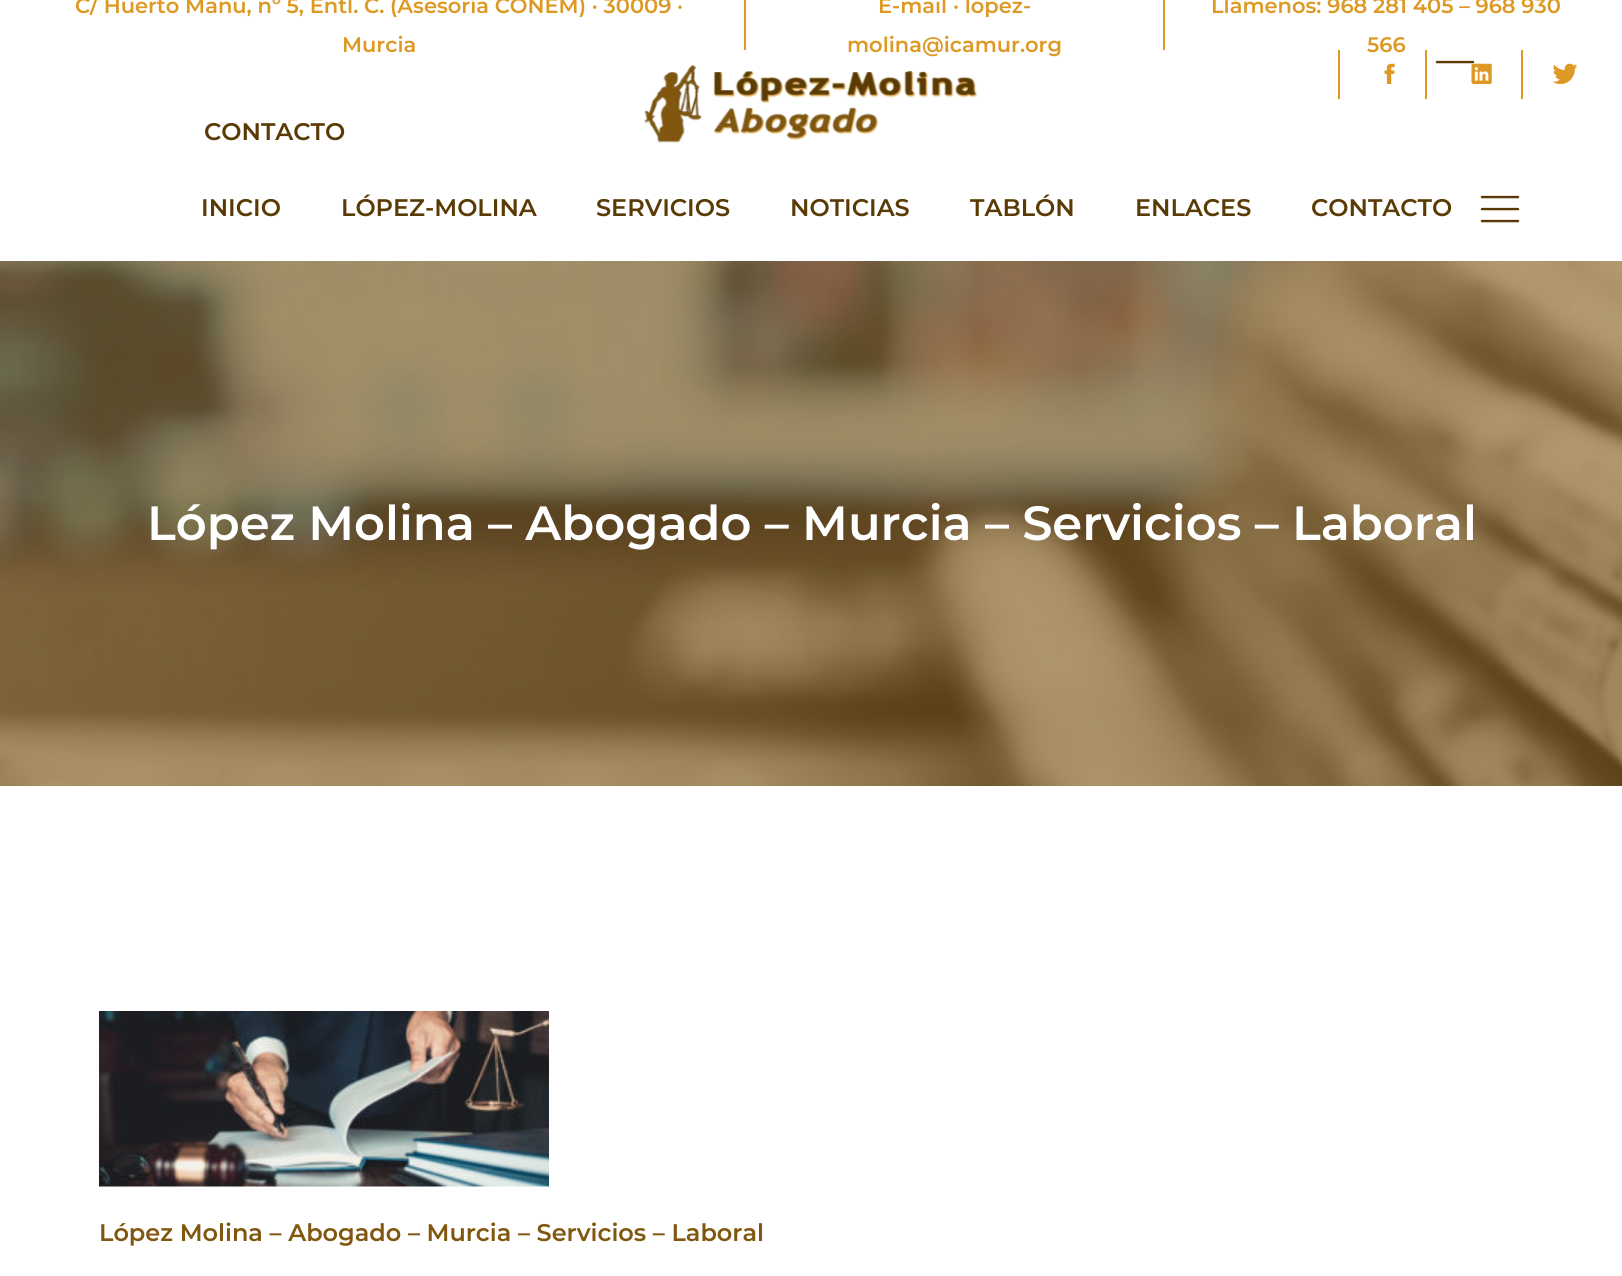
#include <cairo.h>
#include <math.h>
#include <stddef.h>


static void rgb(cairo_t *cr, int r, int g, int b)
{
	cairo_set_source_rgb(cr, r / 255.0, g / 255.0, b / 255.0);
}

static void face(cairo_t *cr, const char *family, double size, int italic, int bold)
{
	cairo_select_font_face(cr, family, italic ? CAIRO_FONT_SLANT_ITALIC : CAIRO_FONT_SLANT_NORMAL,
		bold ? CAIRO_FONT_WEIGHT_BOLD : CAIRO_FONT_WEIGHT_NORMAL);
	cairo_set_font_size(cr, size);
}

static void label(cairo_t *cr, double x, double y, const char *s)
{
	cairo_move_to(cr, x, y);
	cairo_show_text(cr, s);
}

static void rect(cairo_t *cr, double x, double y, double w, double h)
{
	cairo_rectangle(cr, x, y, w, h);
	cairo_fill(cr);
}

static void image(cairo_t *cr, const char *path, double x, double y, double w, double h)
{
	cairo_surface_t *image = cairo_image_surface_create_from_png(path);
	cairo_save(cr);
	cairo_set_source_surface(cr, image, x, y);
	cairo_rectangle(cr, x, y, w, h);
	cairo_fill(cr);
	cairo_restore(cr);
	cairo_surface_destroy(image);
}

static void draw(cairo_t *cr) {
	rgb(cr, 255, 255, 255);
	cairo_paint(cr);
	face(cr, "Montserrat Thin", 21, 0, 0);
	rgb(cr, 221, 153, 36);
	label(cr, 75, 13, "C/ Huerto Manu, nº 5, Entl. C. (Asesoría CONEM) · 30009 ·");
	label(cr, 342, 52, "Murcia");
	rect(cr, 744, 0, 2, 50);
	label(cr, 878, 13, "E-mail · lopez-");
	label(cr, 847, 52, "molina@icamur.org");
	rect(cr, 1163, 0, 2, 50);
	label(cr, 1211, 13, "Llámenos: 968 281 405 – 968 930");
	label(cr, 1367, 52, "566");
	rect(cr, 1338, 50, 2, 49);
	image(cr, "image0.png", 1384, 63, 11, 21);
	rect(cr, 1425, 50, 2, 49);
	image(cr, "image3.png", 1435, 60, 40, 4);
	image(cr, "image1.png", 1471, 63, 21, 21);
	rect(cr, 1521, 50, 2, 49);
	image(cr, "image2.png", 1552, 63, 26, 21);
	face(cr, "Montserrat Thin", 24, 0, 0);
	rgb(cr, 90, 59, 5);
	label(cr, 204, 140, "CONTACTO");
	image(cr, "image4.png", 644, 65, 334, 78);
	label(cr, 201, 216, "INICIO");
	label(cr, 341, 216, "LÓPEZ-MOLINA");
	label(cr, 596, 216, "SERVICIOS");
	label(cr, 790, 216, "NOTICIAS");
	label(cr, 970, 216, "TABLÓN");
	label(cr, 1135, 216, "ENLACES");
	label(cr, 1311, 216, "CONTACTO");
	image(cr, "image5.png", 1480, 195, 40, 28);
	image(cr, "image6.png", 0, 261, 1622, 525);
	face(cr, "Montserrat Thin", 48, 0, 0);
	rgb(cr, 255, 255, 255);
	label(cr, 147, 540, "López Molina – Abogado – Murcia – Servicios – Laboral");
	image(cr, "image7.png", 99, 1011, 450, 176);
	face(cr, "Montserrat Thin", 24, 0, 0);
	rgb(cr, 129, 87, 16);
	label(cr, 99, 1241, "López Molina – Abogado – Murcia – Servicios – Laboral");
}

int main(void) {
	cairo_surface_t *surface = cairo_image_surface_create(CAIRO_FORMAT_RGB24, 1622, 1276);
	cairo_t *cr = cairo_create(surface);
	cairo_font_options_t *options = cairo_font_options_create();
	cairo_font_options_set_hint_metrics(options, CAIRO_HINT_METRICS_OFF);
	cairo_font_options_set_hint_style(options, CAIRO_HINT_STYLE_NONE);
	cairo_set_font_options(cr, options);
	cairo_set_miter_limit(cr, 4);
	draw(cr);
	cairo_surface_write_to_png(surface, "render.png");
	cairo_font_options_destroy(options);
	cairo_destroy(cr);
	cairo_surface_destroy(surface);
	return 0;
}
